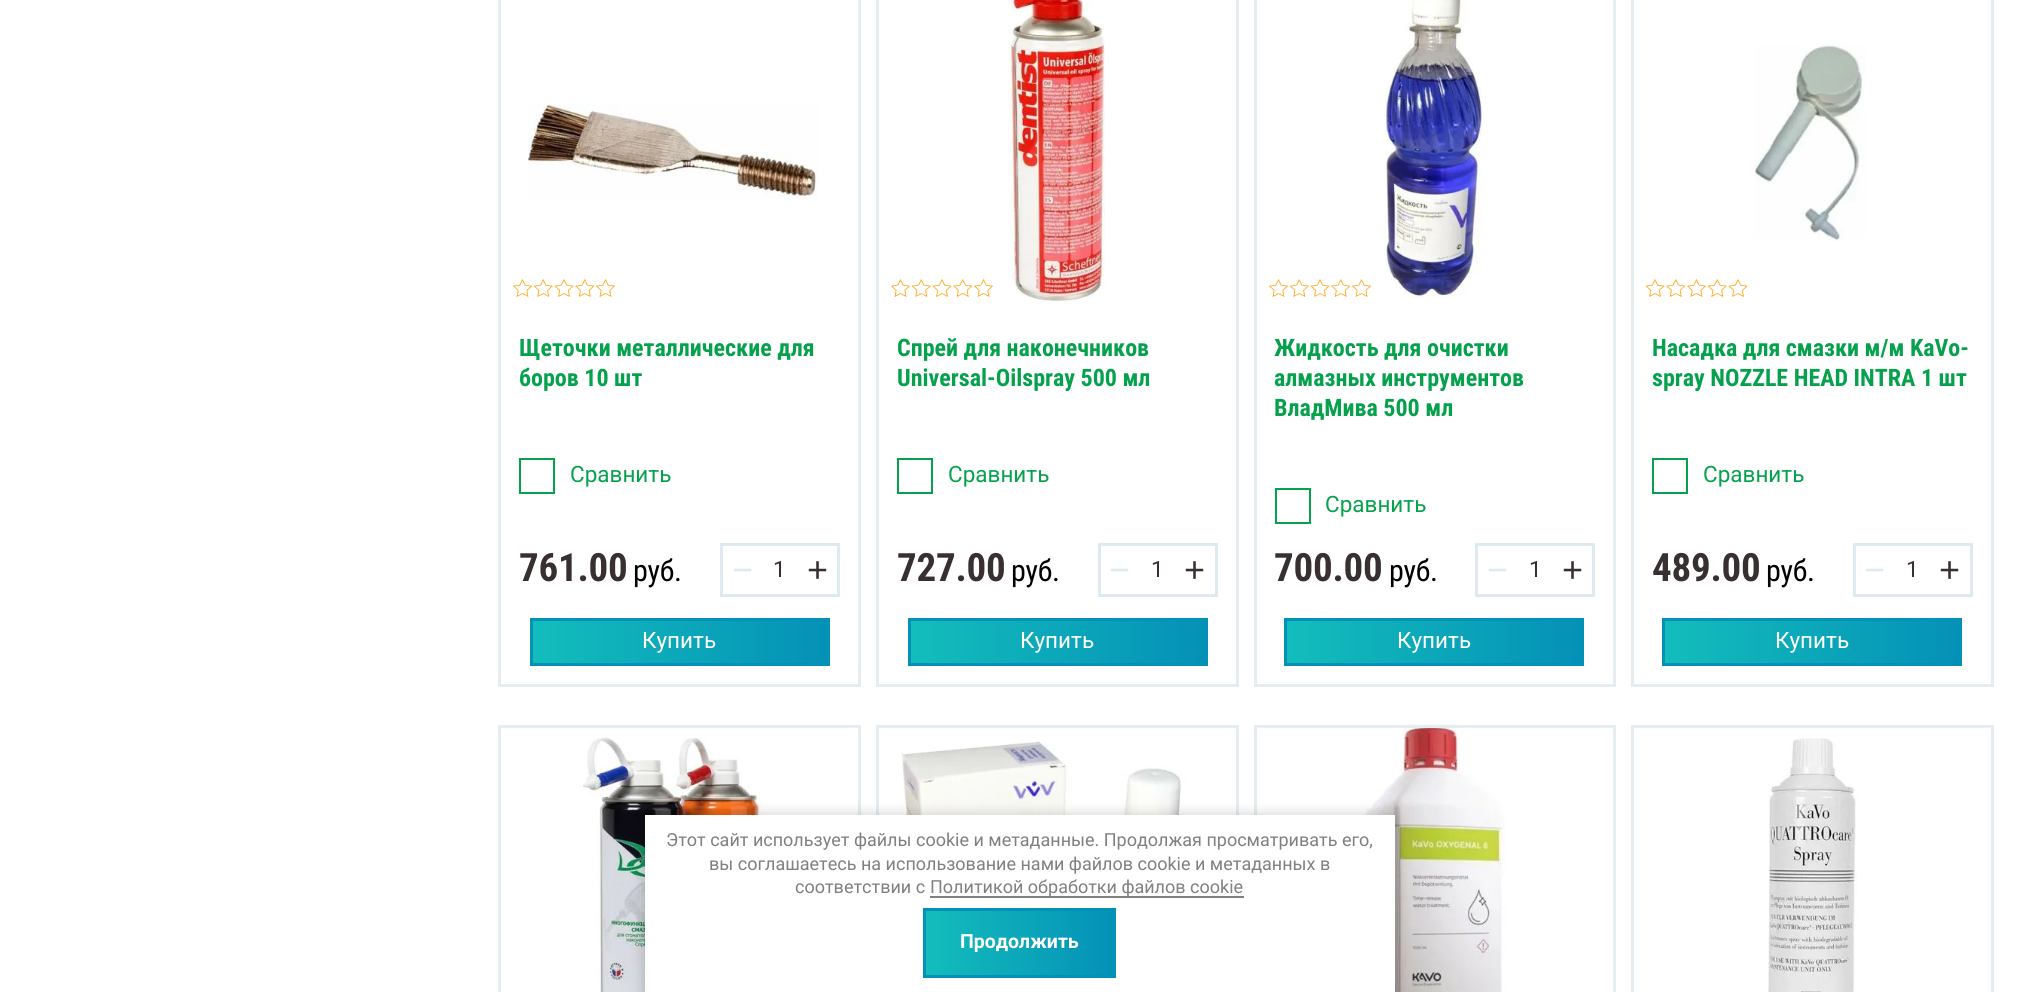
#include <cairo.h>
#include <math.h>
#include <stddef.h>


static void rgb(cairo_t *cr, int r, int g, int b)
{
	cairo_set_source_rgb(cr, r / 255.0, g / 255.0, b / 255.0);
}

static void face(cairo_t *cr, const char *family, double size, int italic, int bold)
{
	cairo_select_font_face(cr, family, italic ? CAIRO_FONT_SLANT_ITALIC : CAIRO_FONT_SLANT_NORMAL,
		bold ? CAIRO_FONT_WEIGHT_BOLD : CAIRO_FONT_WEIGHT_NORMAL);
	cairo_set_font_size(cr, size);
}

static void label(cairo_t *cr, double x, double y, const char *s)
{
	cairo_move_to(cr, x, y);
	cairo_show_text(cr, s);
}

static void tracked(cairo_t *cr, double x, double y, const char *s, double letter, double word)
{
	cairo_move_to(cr, x, y);
	while (*s) {
		char ch[5] = {0};
		int n = 0;
		do ch[n++] = *s++; while ((*s & 0xC0) == 0x80);
		cairo_show_text(cr, ch);
		cairo_rel_move_to(cr, letter + word * (*ch == ' '), 0);
	}
}

static void rect(cairo_t *cr, double x, double y, double w, double h)
{
	cairo_rectangle(cr, x, y, w, h);
	cairo_fill(cr);
}

static void rrect(cairo_t *cr, double x, double y, double w, double h, double r)
{
	cairo_new_sub_path(cr);
	cairo_arc(cr, x + w - r, y + h - r, r, 0, M_PI / 2);
	cairo_arc(cr, x + r, y + h - r, r, M_PI / 2, M_PI);
	cairo_arc(cr, x + r, y + r, r, M_PI, 1.5 * M_PI);
	cairo_arc(cr, x + w - r, y + r, r, 1.5 * M_PI, 2 * M_PI);
	cairo_close_path(cr);
}

static void soft_shadow(cairo_t *cr, double x, double y, double w, double h, double r, double blur, double alpha)
{
	cairo_push_group_with_content(cr, CAIRO_CONTENT_ALPHA);
	cairo_set_operator(cr, CAIRO_OPERATOR_SOURCE);
	for (int i = 15; i >= -15 && fmin(w, h) + blur * i / 3 > 0; i -= 2) {
		double e = blur * i / 6;
		cairo_set_source_rgba(cr, 0, 0, 0, alpha * erfc((i - 1) / 8.5) / 2);
		rrect(cr, x - e, y - e, w + 2 * e, h + 2 * e, fmax(0, fmin(r + e + blur * .6, fmin(w, h) / 2 + e)));
		cairo_fill(cr);
	}
	cairo_pattern_t *soft = cairo_pop_group(cr);
	cairo_mask(cr, soft);
	cairo_pattern_destroy(soft);
}

static void image(cairo_t *cr, const char *path, double x, double y, double w, double h)
{
	cairo_surface_t *image = cairo_image_surface_create_from_png(path);
	cairo_save(cr);
	cairo_set_source_surface(cr, image, x, y);
	cairo_rectangle(cr, x, y, w, h);
	cairo_fill(cr);
	cairo_restore(cr);
	cairo_surface_destroy(image);
}

static void draw(cairo_t *cr) {
	cairo_pattern_t *gradient;
	rgb(cr, 255, 255, 255);
	cairo_paint(cr);
	image(cr, "image0.png", 527, 103, 291, 96);
	image(cr, "image1.png", 513, 279, 102, 18);
	cairo_rectangle(cr, 520, 459, 34, 34);
	rgb(cr, 6, 161, 77);
	cairo_stroke(cr);
	cairo_rectangle(cr, 721.5, 544.5, 117, 51);
	rgb(cr, 221, 235, 240);
	cairo_set_line_width(cr, 3);
	cairo_stroke(cr);
	gradient = cairo_pattern_create_linear(827, 642, 533, 642);
	cairo_pattern_add_color_stop_rgba(gradient, 0, 0.016, 0.569, 0.718, 1);
	cairo_pattern_add_color_stop_rgba(gradient, 1, 0.075, 0.741, 0.737, 1);
	cairo_set_source(cr, gradient);
	cairo_pattern_destroy(gradient);
	rect(cr, 533, 621, 294, 42);
	cairo_rectangle(cr, 531.5, 619.5, 297, 45);
	rgb(cr, 4, 145, 183);
	cairo_stroke(cr);
	cairo_rectangle(cr, 499.5, -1.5, 360, 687);
	rgb(cr, 230, 237, 241);
	cairo_stroke(cr);
	face(cr, "Roboto Condensed", 24, 0, 1);
	rgb(cr, 6, 161, 77);
	label(cr, 519, 356, "Щеточки металлические для");
	label(cr, 519, 386, "боров 10 шт");
	face(cr, "Roboto", 22.5, 0, 0);
	label(cr, 570, 482, "Сравнить");
	face(cr, "Roboto Condensed", 39, 0, 1);
	rgb(cr, 56, 48, 48);
	tracked(cr, 519, 581, "761.00", -0.25, 0);
	face(cr, "Roboto Condensed", 30, 0, 0);
	rgb(cr, 0, 0, 0);
	tracked(cr, 633, 581, "руб.", -0.25, 0);
	face(cr, "Liberation Sans", 36, 0, 0);
	rgb(cr, 221, 235, 240);
	label(cr, 732, 582, "−");
	face(cr, "Roboto", 22.5, 0, 0);
	rgb(cr, 56, 48, 48);
	label(cr, 773, 577, "1");
	face(cr, "Liberation Sans", 36, 0, 0);
	label(cr, 807, 582, "+");
	face(cr, "Roboto", 22.5, 0, 0);
	rgb(cr, 255, 255, 255);
	label(cr, 642, 648, "Купить");
	image(cr, "image2.png", 1008, 0, 97, 304);
	image(cr, "image1.png", 891, 279, 102, 18);
	cairo_rectangle(cr, 898, 459, 34, 34);
	rgb(cr, 6, 161, 77);
	cairo_set_line_width(cr, 2);
	cairo_stroke(cr);
	cairo_rectangle(cr, 1099.5, 544.5, 117, 51);
	rgb(cr, 221, 235, 240);
	cairo_set_line_width(cr, 3);
	cairo_stroke(cr);
	gradient = cairo_pattern_create_linear(1205, 642, 911, 642);
	cairo_pattern_add_color_stop_rgba(gradient, 0, 0.016, 0.569, 0.718, 1);
	cairo_pattern_add_color_stop_rgba(gradient, 1, 0.075, 0.741, 0.737, 1);
	cairo_set_source(cr, gradient);
	cairo_pattern_destroy(gradient);
	rect(cr, 911, 621, 294, 42);
	cairo_rectangle(cr, 909.5, 619.5, 297, 45);
	rgb(cr, 4, 145, 183);
	cairo_stroke(cr);
	cairo_rectangle(cr, 877.5, -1.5, 360, 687);
	rgb(cr, 230, 237, 241);
	cairo_stroke(cr);
	face(cr, "Roboto Condensed", 24, 0, 1);
	rgb(cr, 6, 161, 77);
	label(cr, 897, 356, "Спрей для наконечников");
	label(cr, 897, 386, "Universal-Oilspray 500 мл");
	face(cr, "Roboto", 22.5, 0, 0);
	label(cr, 948, 482, "Сравнить");
	face(cr, "Roboto Condensed", 39, 0, 1);
	rgb(cr, 56, 48, 48);
	tracked(cr, 897, 581, "727.00", -0.25, 0);
	face(cr, "Roboto Condensed", 30, 0, 0);
	rgb(cr, 0, 0, 0);
	tracked(cr, 1011, 581, "руб.", -0.25, 0);
	face(cr, "Liberation Sans", 36, 0, 0);
	rgb(cr, 221, 235, 240);
	label(cr, 1109, 582, "−");
	face(cr, "Roboto", 22.5, 0, 0);
	rgb(cr, 56, 48, 48);
	label(cr, 1151, 577, "1");
	face(cr, "Liberation Sans", 36, 0, 0);
	label(cr, 1184, 582, "+");
	face(cr, "Roboto", 22.5, 0, 0);
	rgb(cr, 255, 255, 255);
	label(cr, 1020, 648, "Купить");
	image(cr, "image3.png", 1385, 0, 97, 299);
	cairo_set_source_rgba(cr, 1, 1, 1, 0.89);
	rect(cr, 1385, 267, 1, 6);
	image(cr, "image4.png", 1269, 279, 102, 18);
	cairo_rectangle(cr, 1276, 489, 34, 34);
	rgb(cr, 6, 161, 77);
	cairo_set_line_width(cr, 2);
	cairo_stroke(cr);
	cairo_rectangle(cr, 1476.5, 544.5, 117, 51);
	rgb(cr, 221, 235, 240);
	cairo_set_line_width(cr, 3);
	cairo_stroke(cr);
	gradient = cairo_pattern_create_linear(1581, 642, 1287, 642);
	cairo_pattern_add_color_stop_rgba(gradient, 0, 0.016, 0.569, 0.718, 1);
	cairo_pattern_add_color_stop_rgba(gradient, 1, 0.075, 0.741, 0.737, 1);
	cairo_set_source(cr, gradient);
	cairo_pattern_destroy(gradient);
	rect(cr, 1287, 621, 294, 42);
	cairo_rectangle(cr, 1285.5, 619.5, 297, 45);
	rgb(cr, 4, 145, 183);
	cairo_stroke(cr);
	cairo_rectangle(cr, 1255.5, -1.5, 359, 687);
	rgb(cr, 230, 237, 241);
	cairo_stroke(cr);
	face(cr, "Roboto Condensed", 24, 0, 1);
	rgb(cr, 6, 161, 77);
	label(cr, 1274, 356, "Жидкость для очистки");
	label(cr, 1274, 386, "алмазных инструментов");
	label(cr, 1274, 416, "ВладМива 500 мл");
	face(cr, "Roboto", 22.5, 0, 0);
	label(cr, 1325, 512, "Сравнить");
	face(cr, "Roboto Condensed", 39, 0, 1);
	rgb(cr, 56, 48, 48);
	tracked(cr, 1274, 581, "700.00", -0.25, 0);
	face(cr, "Roboto Condensed", 30, 0, 0);
	rgb(cr, 0, 0, 0);
	tracked(cr, 1389, 581, "руб.", -0.25, 0);
	face(cr, "Liberation Sans", 36, 0, 0);
	rgb(cr, 221, 235, 240);
	label(cr, 1487, 582, "−");
	face(cr, "Roboto", 22.5, 0, 0);
	rgb(cr, 56, 48, 48);
	label(cr, 1529, 577, "1");
	face(cr, "Liberation Sans", 36, 0, 0);
	label(cr, 1562, 582, "+");
	face(cr, "Roboto", 22.5, 0, 0);
	rgb(cr, 255, 255, 255);
	label(cr, 1397, 648, "Купить");
	image(cr, "image5.png", 1754, 44, 112, 197);
	image(cr, "image6.png", 1646, 279, 102, 18);
	cairo_rectangle(cr, 1653, 459, 34, 34);
	rgb(cr, 6, 161, 77);
	cairo_set_line_width(cr, 2);
	cairo_stroke(cr);
	cairo_rectangle(cr, 1854.5, 544.5, 117, 51);
	rgb(cr, 221, 235, 240);
	cairo_set_line_width(cr, 3);
	cairo_stroke(cr);
	gradient = cairo_pattern_create_linear(1959, 642, 1665, 642);
	cairo_pattern_add_color_stop_rgba(gradient, 0, 0.016, 0.569, 0.718, 1);
	cairo_pattern_add_color_stop_rgba(gradient, 1, 0.075, 0.741, 0.737, 1);
	cairo_set_source(cr, gradient);
	cairo_pattern_destroy(gradient);
	rect(cr, 1665, 621, 294, 42);
	cairo_rectangle(cr, 1663.5, 619.5, 297, 45);
	rgb(cr, 4, 145, 183);
	cairo_stroke(cr);
	cairo_rectangle(cr, 1632.5, -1.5, 360, 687);
	rgb(cr, 230, 237, 241);
	cairo_stroke(cr);
	face(cr, "Roboto Condensed", 24, 0, 1);
	rgb(cr, 6, 161, 77);
	label(cr, 1652, 356, "Насадка для смазки м/м KaVo-");
	label(cr, 1652, 386, "spray NOZZLE HEAD INTRA 1 шт");
	face(cr, "Roboto", 22.5, 0, 0);
	label(cr, 1703, 482, "Сравнить");
	face(cr, "Roboto Condensed", 39, 0, 1);
	rgb(cr, 56, 48, 48);
	tracked(cr, 1652, 581, "489.00", -0.25, 0);
	face(cr, "Roboto Condensed", 30, 0, 0);
	rgb(cr, 0, 0, 0);
	tracked(cr, 1766, 581, "руб.", -0.25, 0);
	face(cr, "Liberation Sans", 36, 0, 0);
	rgb(cr, 221, 235, 240);
	label(cr, 1864, 582, "−");
	face(cr, "Roboto", 22.5, 0, 0);
	rgb(cr, 56, 48, 48);
	label(cr, 1906, 577, "1");
	face(cr, "Liberation Sans", 36, 0, 0);
	label(cr, 1939, 582, "+");
	face(cr, "Roboto", 22.5, 0, 0);
	rgb(cr, 255, 255, 255);
	label(cr, 1775, 648, "Купить");
	image(cr, "image7.png", 582, 737, 181, 255);
	cairo_rectangle(cr, 499.5, 726.5, 360, 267);
	rgb(cr, 230, 237, 241);
	cairo_stroke(cr);
	image(cr, "image8.png", 901, 741, 313, 74);
	cairo_rectangle(cr, 877.5, 726.5, 360, 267);
	cairo_stroke(cr);
	image(cr, "image9.png", 1363, 724, 143, 268);
	cairo_rectangle(cr, 1255.5, 726.5, 359, 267);
	cairo_stroke(cr);
	image(cr, "image10.png", 1768, 738, 89, 254);
	cairo_rectangle(cr, 1632.5, 726.5, 360, 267);
	cairo_stroke(cr);
	rgb(cr, 0, 0, 0);
	soft_shadow(cr, 645, 816, 750, 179, 0, 7.5, 0.23);
	rgb(cr, 255, 255, 255);
	rect(cr, 645, 815, 750, 177);
	face(cr, "Roboto", 18, 0, 0);
	rgb(cr, 128, 128, 128);
	label(cr, 666, 846, "Этот сайт использует файлы cookie и метаданные. Продолжая просматривать его,");
	label(cr, 709, 870, "вы соглашаетесь на использование нами файлов cookie и метаданных в");
	label(cr, 795, 893, "соответствии с");
	rect(cr, 930, 896, 314, 2);
	label(cr, 930, 893, "Политикой обработки файлов cookie");
	gradient = cairo_pattern_create_linear(1113, 943, 926, 943);
	cairo_pattern_add_color_stop_rgba(gradient, 0, 0.016, 0.569, 0.718, 1);
	cairo_pattern_add_color_stop_rgba(gradient, 1, 0.075, 0.741, 0.737, 1);
	cairo_set_source(cr, gradient);
	cairo_pattern_destroy(gradient);
	rect(cr, 926, 911, 187, 64);
	cairo_rectangle(cr, 924.5, 909.5, 190, 67);
	rgb(cr, 4, 145, 183);
	cairo_stroke(cr);
	face(cr, "Roboto", 19.5, 0, 1);
	rgb(cr, 255, 255, 255);
	label(cr, 960, 948, "Продолжить");
}

int main(void) {
	cairo_surface_t *surface = cairo_image_surface_create(CAIRO_FORMAT_RGB24, 2038, 992);
	cairo_t *cr = cairo_create(surface);
	cairo_font_options_t *options = cairo_font_options_create();
	cairo_font_options_set_hint_metrics(options, CAIRO_HINT_METRICS_OFF);
	cairo_font_options_set_hint_style(options, CAIRO_HINT_STYLE_NONE);
	cairo_set_font_options(cr, options);
	cairo_set_miter_limit(cr, 4);
	draw(cr);
	cairo_surface_write_to_png(surface, "render.png");
	cairo_font_options_destroy(options);
	cairo_destroy(cr);
	cairo_surface_destroy(surface);
	return 0;
}
